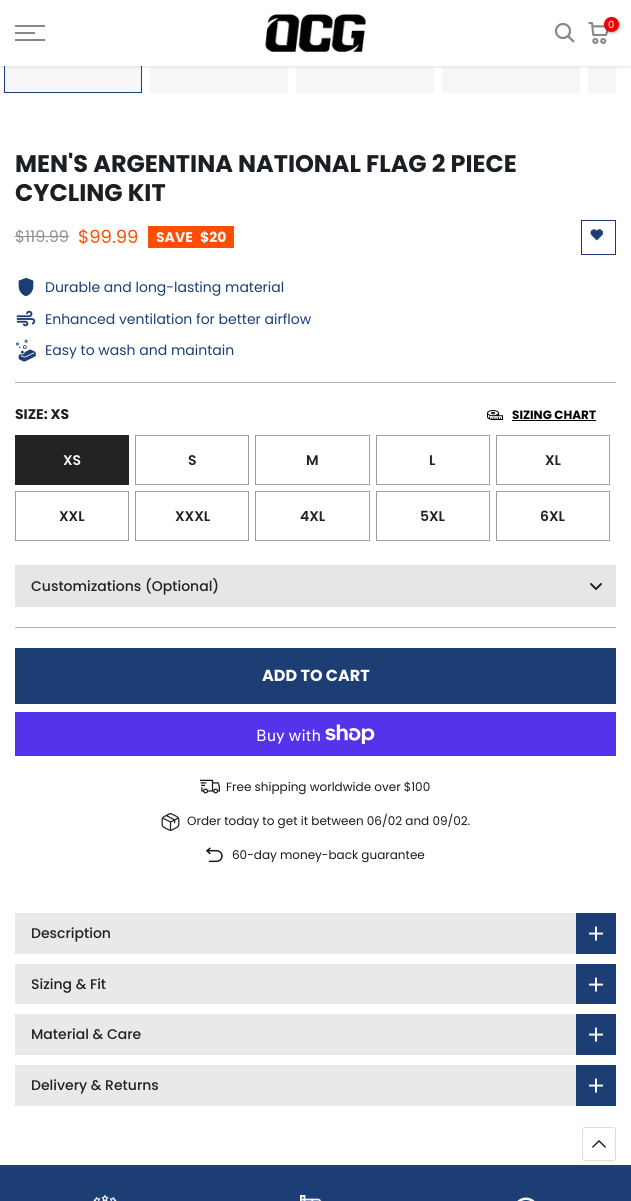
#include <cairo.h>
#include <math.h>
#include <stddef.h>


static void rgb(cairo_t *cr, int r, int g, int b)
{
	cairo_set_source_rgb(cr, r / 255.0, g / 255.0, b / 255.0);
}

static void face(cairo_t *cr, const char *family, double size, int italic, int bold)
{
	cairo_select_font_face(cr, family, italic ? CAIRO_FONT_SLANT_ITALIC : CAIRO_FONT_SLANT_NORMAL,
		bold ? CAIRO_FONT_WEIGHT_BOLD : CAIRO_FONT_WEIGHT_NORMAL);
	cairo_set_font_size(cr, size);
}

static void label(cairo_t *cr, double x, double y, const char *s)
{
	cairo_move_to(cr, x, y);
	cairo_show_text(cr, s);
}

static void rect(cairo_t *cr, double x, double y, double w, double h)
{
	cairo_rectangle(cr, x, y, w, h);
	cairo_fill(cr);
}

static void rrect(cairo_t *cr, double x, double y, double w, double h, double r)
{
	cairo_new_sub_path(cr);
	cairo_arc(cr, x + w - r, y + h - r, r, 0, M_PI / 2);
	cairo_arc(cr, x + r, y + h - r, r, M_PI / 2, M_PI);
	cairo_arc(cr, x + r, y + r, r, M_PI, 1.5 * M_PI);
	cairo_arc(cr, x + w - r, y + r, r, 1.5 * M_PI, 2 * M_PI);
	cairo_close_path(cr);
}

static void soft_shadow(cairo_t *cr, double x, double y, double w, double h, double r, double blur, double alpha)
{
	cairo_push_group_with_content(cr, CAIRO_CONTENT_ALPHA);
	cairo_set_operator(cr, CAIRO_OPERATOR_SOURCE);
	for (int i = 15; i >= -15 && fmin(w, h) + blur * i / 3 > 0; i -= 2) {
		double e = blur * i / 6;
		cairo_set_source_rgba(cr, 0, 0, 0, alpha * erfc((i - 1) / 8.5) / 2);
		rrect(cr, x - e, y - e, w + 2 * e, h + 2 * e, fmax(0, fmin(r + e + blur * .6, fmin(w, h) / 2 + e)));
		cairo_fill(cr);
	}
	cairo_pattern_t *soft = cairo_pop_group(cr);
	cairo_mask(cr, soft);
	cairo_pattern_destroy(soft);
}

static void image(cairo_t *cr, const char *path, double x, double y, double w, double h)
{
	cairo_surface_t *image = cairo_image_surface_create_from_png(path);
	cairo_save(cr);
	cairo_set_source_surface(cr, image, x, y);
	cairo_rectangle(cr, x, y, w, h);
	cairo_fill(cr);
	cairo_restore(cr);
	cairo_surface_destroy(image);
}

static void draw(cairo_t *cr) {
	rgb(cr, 255, 255, 255);
	cairo_paint(cr);
	rgb(cr, 246, 246, 246);
	rect(cr, 5, 66, 136, 26);
	cairo_rectangle(cr, 4.5, -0.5, 137, 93);
	rgb(cr, 29, 61, 117);
	cairo_set_line_width(cr, 1);
	cairo_stroke(cr);
	rgb(cr, 246, 246, 246);
	rect(cr, 150, 66, 138, 27);
	rect(cr, 296, 66, 138, 27);
	rect(cr, 442, 66, 138, 27);
	rect(cr, 588, 66, 28, 27);
	rgb(cr, 0, 0, 0);
	soft_shadow(cr, 0, 1, 631, 66, 0, 1.5, 0.1);
	rgb(cr, 255, 255, 255);
	rect(cr, 0, 0, 631, 66);
	image(cr, "image0.png", 265, 14, 101, 38);
	cairo_arc(cr, 563, 31, 7, 0, 2 * M_PI);
	rgb(cr, 135, 135, 135);
	cairo_set_line_width(cr, 2.2);
	cairo_stroke(cr);
	cairo_new_path(cr);
	cairo_move_to(cr, 568, 36);
	cairo_line_to(cr, 574, 42);
	cairo_stroke(cr);
	image(cr, "image1.png", 588, 22, 21, 22);
	rgb(cr, 0, 0, 0);
	soft_shadow(cr, 605, 18, 15, 15, 7.5, 1.5, 0.3);
	rgb(cr, 236, 1, 1);
	cairo_arc(cr, 611.5, 24.5, 7.5, 0, 2 * M_PI);
	cairo_fill(cr);
	face(cr, "Poppins", 10, 0, 0);
	rgb(cr, 255, 255, 255);
	label(cr, 608, 28, "0");
	rgb(cr, 135, 135, 135);
	rect(cr, 15, 25, 30, 2);
	rect(cr, 15, 32, 20, 2);
	rect(cr, 15, 39, 30, 2);
	face(cr, "Poppins", 24, 0, 1);
	rgb(cr, 27, 31, 35);
	label(cr, 15, 172, "MEN'S ARGENTINA NATIONAL FLAG 2 PIECE");
	label(cr, 15, 201, "CYCLING KIT");
	face(cr, "Poppins", 16, 0, 0);
	rgb(cr, 145, 145, 145);
	label(cr, 15, 242, "$119.99");
	rect(cr, 15, 236, 54, 1);
	face(cr, "Poppins", 18, 0, 0);
	rgb(cr, 255, 78, 0);
	label(cr, 78, 243, "$99.99");
	rect(cr, 148, 226, 86, 22);
	face(cr, "Poppins", 14, 0, 1);
	rgb(cr, 246, 246, 246);
	label(cr, 156, 242, "SAVE");
	label(cr, 200, 242, "$20");
	cairo_rectangle(cr, 581.5, 220.5, 34, 34);
	rgb(cr, 29, 61, 117);
	cairo_set_line_width(cr, 1);
	cairo_stroke(cr);
	image(cr, "image2.png", 590, 229, 13, 12);
	rgb(cr, 179, 179, 179);
	rect(cr, 15, 382, 601, 1);
	image(cr, "image3.png", 18, 277, 16, 20);
	face(cr, "Poppins", 14, 0, 0);
	rgb(cr, 29, 61, 117);
	label(cr, 45, 292, "Durable and long-lasting material");
	image(cr, "image4.png", 16, 310, 20, 17);
	label(cr, 45, 324, "Enhanced ventilation for better airflow");
	image(cr, "image5.png", 16, 339, 20, 23);
	label(cr, 45, 355, "Easy to wash and maintain");
	face(cr, "Poppins", 14, 0, 1);
	rgb(cr, 34, 34, 34);
	label(cr, 15, 419, "SIZE: XS");
	image(cr, "image6.png", 487, 410, 16, 10);
	face(cr, "Poppins", 12, 0, 1);
	rgb(cr, 0, 0, 0);
	label(cr, 512, 419, "SIZING CHART");
	rect(cr, 512, 420, 84, 1);
	rgb(cr, 34, 34, 34);
	rect(cr, 15, 435, 114, 50);
	face(cr, "Poppins SemiBold", 14, 0, 0);
	rgb(cr, 246, 246, 246);
	label(cr, 63, 465, "XS");
	cairo_rectangle(cr, 135.5, 435.5, 113, 49);
	rgb(cr, 158, 158, 158);
	cairo_stroke(cr);
	rgb(cr, 34, 34, 34);
	label(cr, 188, 465, "S");
	cairo_rectangle(cr, 255.5, 435.5, 114, 49);
	rgb(cr, 158, 158, 158);
	cairo_stroke(cr);
	rgb(cr, 34, 34, 34);
	label(cr, 306, 465, "M");
	cairo_rectangle(cr, 376.5, 435.5, 113, 49);
	rgb(cr, 158, 158, 158);
	cairo_stroke(cr);
	rgb(cr, 34, 34, 34);
	label(cr, 429, 465, "L");
	cairo_rectangle(cr, 496.5, 435.5, 113, 49);
	rgb(cr, 158, 158, 158);
	cairo_stroke(cr);
	rgb(cr, 34, 34, 34);
	label(cr, 545, 465, "XL");
	cairo_rectangle(cr, 15.5, 491.5, 113, 49);
	rgb(cr, 158, 158, 158);
	cairo_stroke(cr);
	rgb(cr, 34, 34, 34);
	label(cr, 59, 521, "XXL");
	cairo_rectangle(cr, 135.5, 491.5, 113, 49);
	rgb(cr, 158, 158, 158);
	cairo_stroke(cr);
	rgb(cr, 34, 34, 34);
	label(cr, 175, 521, "XXXL");
	cairo_rectangle(cr, 255.5, 491.5, 114, 49);
	rgb(cr, 158, 158, 158);
	cairo_stroke(cr);
	rgb(cr, 34, 34, 34);
	label(cr, 300, 521, "4XL");
	cairo_rectangle(cr, 376.5, 491.5, 113, 49);
	rgb(cr, 158, 158, 158);
	cairo_stroke(cr);
	rgb(cr, 34, 34, 34);
	label(cr, 420, 521, "5XL");
	cairo_rectangle(cr, 496.5, 491.5, 113, 49);
	rgb(cr, 158, 158, 158);
	cairo_stroke(cr);
	rgb(cr, 34, 34, 34);
	label(cr, 540, 521, "6XL");
	rgb(cr, 179, 179, 179);
	rect(cr, 15, 627, 601, 1);
	rgb(cr, 230, 230, 230);
	rect(cr, 15, 565, 601, 42);
	face(cr, "Poppins Medium", 14, 0, 0);
	rgb(cr, 34, 34, 34);
	label(cr, 31, 591, "Customizations (Optional)");
	cairo_new_path(cr);
	cairo_move_to(cr, 591, 584);
	cairo_line_to(cr, 596, 589);
	cairo_line_to(cr, 601, 584);
	cairo_set_line_width(cr, 2);
	cairo_set_line_cap(cr, CAIRO_LINE_CAP_ROUND);
	cairo_set_line_join(cr, CAIRO_LINE_JOIN_ROUND);
	cairo_stroke(cr);
	rgb(cr, 29, 61, 117);
	rect(cr, 15, 648, 601, 56);
	face(cr, "Poppins", 16, 0, 1);
	rgb(cr, 255, 255, 255);
	label(cr, 262, 681, "ADD TO CART");
	rgb(cr, 84, 51, 235);
	rect(cr, 15, 712, 601, 44);
	face(cr, "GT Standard", 16, 0, 0);
	rgb(cr, 255, 255, 255);
	label(cr, 256, 741, "Buy with");
	image(cr, "image7.png", 325, 724, 50, 20);
	image(cr, "image8.png", 200, 779, 20, 15);
	face(cr, "Poppins", 12, 0, 0);
	rgb(cr, 26, 26, 26);
	label(cr, 226, 791, "Free shipping worldwide over $100");
	image(cr, "image9.png", 161, 813, 19, 18);
	label(cr, 187, 825, "Order today to get it between 06/02 and 09/02.");
	image(cr, "image10.png", 206, 847, 17, 16);
	label(cr, 232, 859, "60-day money-back guarantee");
	rgb(cr, 233, 233, 233);
	rect(cr, 15, 913, 561, 41);
	face(cr, "Poppins Medium", 14, 0, 0);
	rgb(cr, 34, 34, 34);
	label(cr, 31, 938, "Description");
	rgb(cr, 29, 61, 117);
	rect(cr, 576, 913, 40, 41);
	image(cr, "image11.png", 589, 926, 14, 15);
	rgb(cr, 233, 233, 233);
	rect(cr, 15, 964, 561, 40);
	rgb(cr, 34, 34, 34);
	label(cr, 31, 989, "Sizing & Fit");
	rgb(cr, 29, 61, 117);
	rect(cr, 576, 964, 40, 40);
	image(cr, "image11.png", 589, 977, 14, 15);
	rgb(cr, 233, 233, 233);
	rect(cr, 15, 1014, 561, 41);
	rgb(cr, 34, 34, 34);
	label(cr, 31, 1039, "Material & Care");
	rgb(cr, 29, 61, 117);
	rect(cr, 576, 1014, 40, 41);
	image(cr, "image11.png", 589, 1027, 14, 15);
	rgb(cr, 233, 233, 233);
	rect(cr, 15, 1065, 561, 41);
	rgb(cr, 34, 34, 34);
	label(cr, 31, 1090, "Delivery & Returns");
	rgb(cr, 29, 61, 117);
	rect(cr, 576, 1065, 40, 41);
	image(cr, "image11.png", 589, 1078, 14, 15);
	rect(cr, 0, 1165, 631, 36);
	image(cr, "image12.png", 93, 1195, 24, 6);
	image(cr, "image13.png", 300, 1195, 22, 6);
	image(cr, "image14.png", 517, 1197, 18, 4);
	rrect(cr, 582.5, 1127.5, 33, 33, 2.5);
	rgb(cr, 221, 221, 221);
	cairo_set_line_width(cr, 1);
	cairo_set_line_cap(cr, CAIRO_LINE_CAP_BUTT);
	cairo_set_line_join(cr, CAIRO_LINE_JOIN_MITER);
	cairo_stroke(cr);
	image(cr, "image15.png", 592, 1140, 14, 8);
}

int main(void) {
	cairo_surface_t *surface = cairo_image_surface_create(CAIRO_FORMAT_RGB24, 631, 1201);
	cairo_t *cr = cairo_create(surface);
	cairo_font_options_t *options = cairo_font_options_create();
	cairo_font_options_set_hint_metrics(options, CAIRO_HINT_METRICS_OFF);
	cairo_font_options_set_hint_style(options, CAIRO_HINT_STYLE_NONE);
	cairo_set_font_options(cr, options);
	cairo_set_miter_limit(cr, 4);
	draw(cr);
	cairo_surface_write_to_png(surface, "render.png");
	cairo_font_options_destroy(options);
	cairo_destroy(cr);
	cairo_surface_destroy(surface);
	return 0;
}
